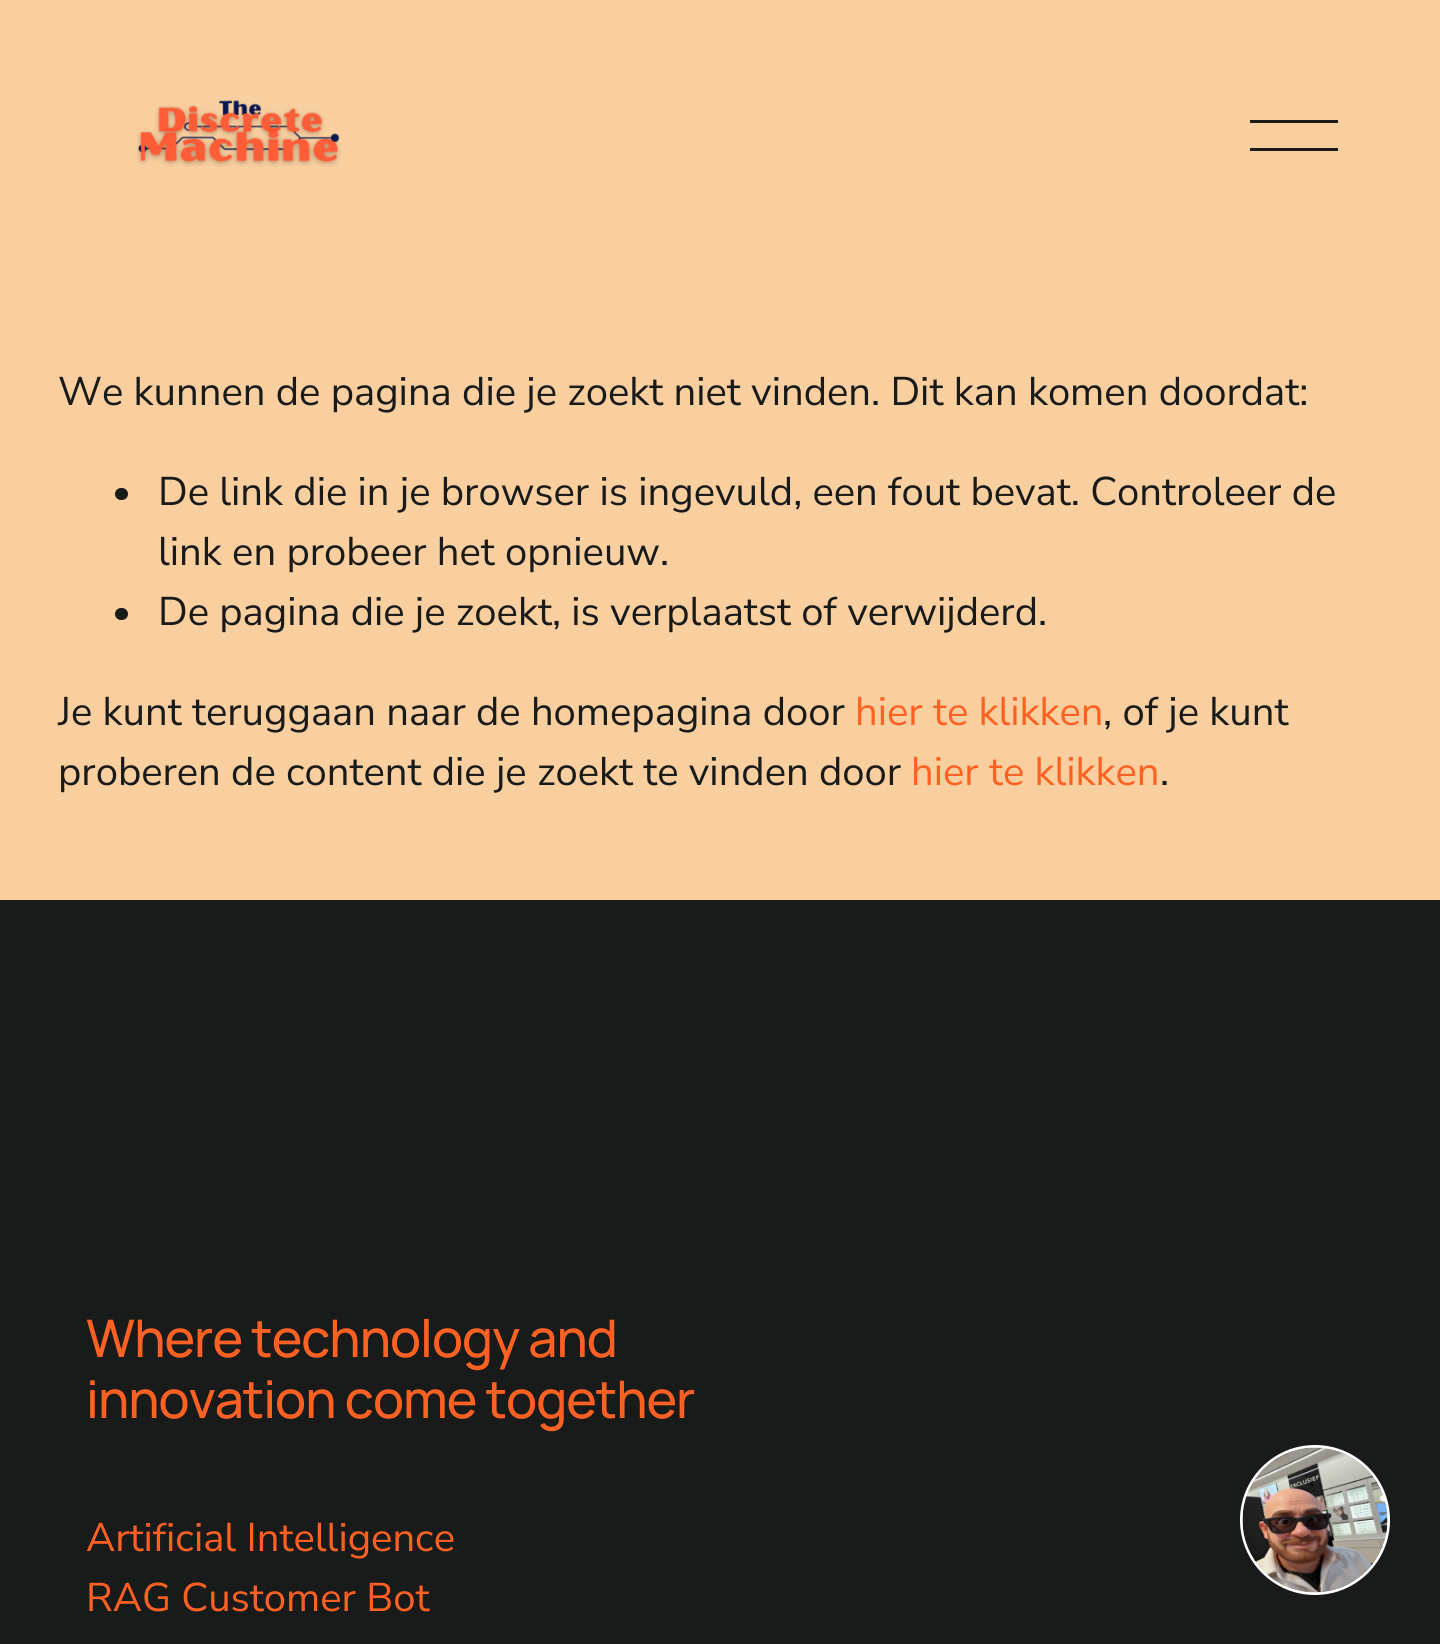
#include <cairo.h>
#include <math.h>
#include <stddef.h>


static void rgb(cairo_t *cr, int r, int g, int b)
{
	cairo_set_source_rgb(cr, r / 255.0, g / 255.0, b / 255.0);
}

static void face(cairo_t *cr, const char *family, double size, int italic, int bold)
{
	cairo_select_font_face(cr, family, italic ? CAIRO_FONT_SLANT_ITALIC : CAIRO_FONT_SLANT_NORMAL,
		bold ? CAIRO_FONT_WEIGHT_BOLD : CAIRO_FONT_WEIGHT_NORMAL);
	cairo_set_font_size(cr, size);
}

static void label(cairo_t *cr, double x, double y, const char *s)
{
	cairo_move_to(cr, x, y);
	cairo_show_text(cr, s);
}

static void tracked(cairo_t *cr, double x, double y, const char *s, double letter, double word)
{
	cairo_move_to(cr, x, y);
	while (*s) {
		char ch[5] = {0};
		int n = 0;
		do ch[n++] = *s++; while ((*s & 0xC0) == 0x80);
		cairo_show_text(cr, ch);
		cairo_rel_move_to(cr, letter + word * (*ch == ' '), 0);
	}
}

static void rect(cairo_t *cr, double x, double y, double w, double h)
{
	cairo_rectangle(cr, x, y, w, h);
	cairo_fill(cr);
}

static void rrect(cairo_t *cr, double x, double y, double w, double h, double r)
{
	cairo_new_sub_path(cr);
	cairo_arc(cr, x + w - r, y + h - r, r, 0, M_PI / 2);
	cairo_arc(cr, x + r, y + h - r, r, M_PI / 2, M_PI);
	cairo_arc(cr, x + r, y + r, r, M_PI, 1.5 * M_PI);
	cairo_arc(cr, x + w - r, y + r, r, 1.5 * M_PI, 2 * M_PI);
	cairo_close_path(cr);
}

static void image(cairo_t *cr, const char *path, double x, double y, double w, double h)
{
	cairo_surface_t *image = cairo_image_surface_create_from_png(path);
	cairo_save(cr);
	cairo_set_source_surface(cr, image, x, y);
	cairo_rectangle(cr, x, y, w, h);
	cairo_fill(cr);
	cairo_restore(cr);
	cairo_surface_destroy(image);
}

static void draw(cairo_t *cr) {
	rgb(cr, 250, 207, 159);
	cairo_paint(cr);
	image(cr, "image0.png", 137, 100, 204, 67);
	rgb(cr, 25, 26, 26);
	rect(cr, 1250, 120, 88, 3);
	rect(cr, 1250, 148, 88, 3);
	face(cr, "Nunito Sans", 40, 0, 0);
	label(cr, 58, 405, "We kunnen de pagina die je zoekt niet vinden. Dit kan komen doordat:");
	rrect(cr, 115, 488, 13, 12, 6);
	cairo_fill(cr);
	label(cr, 158, 505, "De link die in je browser is ingevuld, een fout bevat. Controleer de");
	label(cr, 158, 565, "link en probeer het opnieuw.");
	rrect(cr, 115, 608, 13, 12, 6);
	cairo_fill(cr);
	label(cr, 158, 625, "De pagina die je zoekt, is verplaatst of verwijderd.");
	label(cr, 58, 725, "Je kunt teruggaan naar de homepagina door");
	rgb(cr, 255, 97, 35);
	label(cr, 855, 725, "hier te klikken");
	rgb(cr, 25, 26, 26);
	label(cr, 1103, 725, ", of je kunt");
	label(cr, 58, 785, "proberen de content die je zoekt te vinden door");
	rgb(cr, 255, 97, 35);
	label(cr, 911, 785, "hier te klikken");
	rgb(cr, 25, 26, 26);
	label(cr, 1160, 785, ".");
	rect(cr, 0, 900, 1440, 744);
	face(cr, "Manrope Medium", 51.8, 0, 0);
	rgb(cr, 255, 97, 35);
	tracked(cr, 86, 1357, "Where technology and", -1, 0);
	tracked(cr, 86, 1418, "innovation come together", -1, 0);
	face(cr, "Nunito Sans", 40, 0, 0);
	label(cr, 86, 1551, "Artificial Intelligence");
	label(cr, 86, 1611, "RAG Customer Bot");
	cairo_new_path(cr);
	cairo_arc(cr, 1315, 1520, 73.5, 0, 2 * M_PI);
	rgb(cr, 255, 255, 255);
	cairo_set_line_width(cr, 3);
	cairo_stroke(cr);
	image(cr, "image1.png", 1242, 1447, 146, 146);
}

int main(void) {
	cairo_surface_t *surface = cairo_image_surface_create(CAIRO_FORMAT_RGB24, 1440, 1644);
	cairo_t *cr = cairo_create(surface);
	cairo_font_options_t *options = cairo_font_options_create();
	cairo_font_options_set_hint_metrics(options, CAIRO_HINT_METRICS_OFF);
	cairo_font_options_set_hint_style(options, CAIRO_HINT_STYLE_NONE);
	cairo_set_font_options(cr, options);
	cairo_set_miter_limit(cr, 4);
	draw(cr);
	cairo_surface_write_to_png(surface, "render.png");
	cairo_font_options_destroy(options);
	cairo_destroy(cr);
	cairo_surface_destroy(surface);
	return 0;
}
